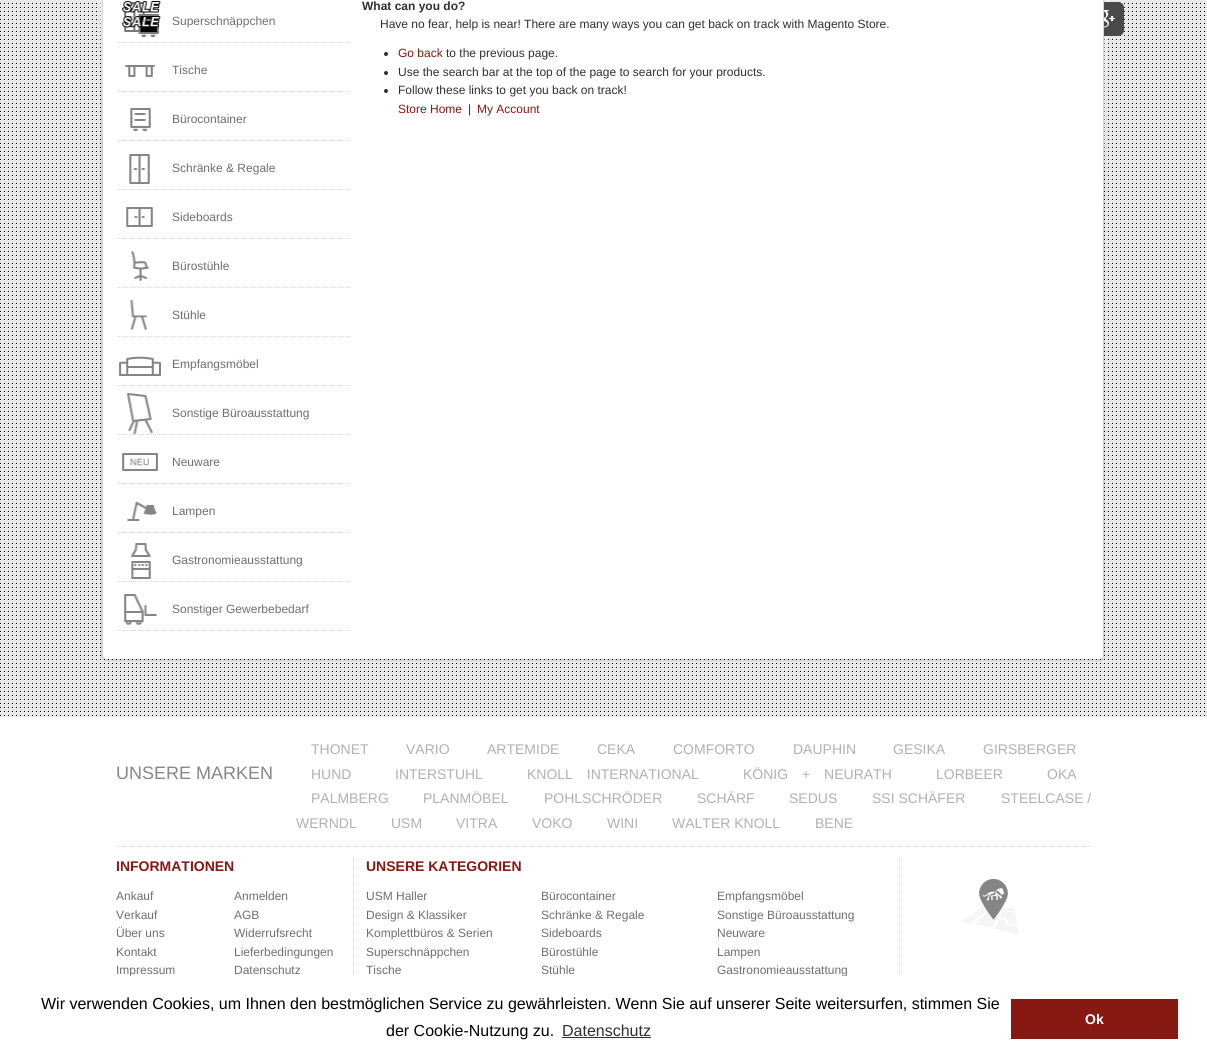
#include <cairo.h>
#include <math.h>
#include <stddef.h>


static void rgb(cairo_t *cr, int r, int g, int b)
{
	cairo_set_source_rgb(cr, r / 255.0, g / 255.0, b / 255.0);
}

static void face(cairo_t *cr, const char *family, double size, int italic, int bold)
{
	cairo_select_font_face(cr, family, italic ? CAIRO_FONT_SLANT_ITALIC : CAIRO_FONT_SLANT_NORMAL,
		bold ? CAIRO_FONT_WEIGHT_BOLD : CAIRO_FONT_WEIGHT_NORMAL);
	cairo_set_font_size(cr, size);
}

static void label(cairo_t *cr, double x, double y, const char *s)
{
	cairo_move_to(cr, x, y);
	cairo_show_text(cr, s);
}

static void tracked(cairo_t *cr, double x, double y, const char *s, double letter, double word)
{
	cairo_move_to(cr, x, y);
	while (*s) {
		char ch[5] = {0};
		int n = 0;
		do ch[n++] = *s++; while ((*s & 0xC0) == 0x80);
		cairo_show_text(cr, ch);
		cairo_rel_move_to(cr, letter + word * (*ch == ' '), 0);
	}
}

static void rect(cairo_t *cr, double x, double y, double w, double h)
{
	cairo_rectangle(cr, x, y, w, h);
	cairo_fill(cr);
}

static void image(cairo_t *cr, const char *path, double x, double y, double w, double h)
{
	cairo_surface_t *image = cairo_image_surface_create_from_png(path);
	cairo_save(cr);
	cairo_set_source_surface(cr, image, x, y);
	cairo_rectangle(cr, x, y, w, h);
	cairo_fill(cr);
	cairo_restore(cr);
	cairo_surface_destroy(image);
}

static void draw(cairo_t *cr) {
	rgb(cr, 255, 255, 255);
	cairo_paint(cr);
	image(cr, "image0.png", 0, 0, 1207, 717);
	image(cr, "image1.png", 99, 0, 1010, 202);
	image(cr, "image2.png", 122, 1, 39, 37);
	cairo_new_path(cr);
	cairo_move_to(cr, 117, 42.5);
	cairo_line_to(cr, 350, 42.5);
	rgb(cr, 217, 217, 217);
	cairo_set_line_width(cr, 1);
	cairo_set_dash(cr, (double[]){1, 1}, 2, 0);
	cairo_stroke(cr);
	face(cr, "Liberation Sans", 12, 0, 0);
	rgb(cr, 110, 110, 110);
	label(cr, 172, 25, "Superschnäppchen");
	image(cr, "image3.png", 125, 65, 30, 12);
	cairo_new_path(cr);
	cairo_move_to(cr, 117, 91.5);
	cairo_line_to(cr, 350, 91.5);
	rgb(cr, 217, 217, 217);
	cairo_stroke(cr);
	rgb(cr, 110, 110, 110);
	label(cr, 172, 74, "Tische");
	image(cr, "image4.png", 130, 108, 21, 24);
	cairo_new_path(cr);
	cairo_move_to(cr, 117, 140.5);
	cairo_line_to(cr, 350, 140.5);
	rgb(cr, 217, 217, 217);
	cairo_stroke(cr);
	rgb(cr, 110, 110, 110);
	label(cr, 172, 123, "Bürocontainer");
	image(cr, "image5.png", 129, 154, 21, 30);
	cairo_new_path(cr);
	cairo_move_to(cr, 117, 189.5);
	cairo_line_to(cr, 350, 189.5);
	rgb(cr, 217, 217, 217);
	cairo_stroke(cr);
	rgb(cr, 110, 110, 110);
	label(cr, 172, 172, "Schränke & Regale");
	image(cr, "image15.png", 100, 202, 1006, 441);
	image(cr, "image6.png", 126, 207, 27, 20);
	cairo_new_path(cr);
	cairo_move_to(cr, 117, 238.5);
	cairo_line_to(cr, 350, 238.5);
	rgb(cr, 217, 217, 217);
	cairo_stroke(cr);
	rgb(cr, 110, 110, 110);
	label(cr, 172, 221, "Sideboards");
	image(cr, "image7.png", 131, 251, 18, 30);
	cairo_new_path(cr);
	cairo_move_to(cr, 117, 287.5);
	cairo_line_to(cr, 350, 287.5);
	rgb(cr, 217, 217, 217);
	cairo_stroke(cr);
	rgb(cr, 110, 110, 110);
	label(cr, 172, 270, "Bürostühle");
	image(cr, "image8.png", 130, 300, 17, 30);
	cairo_new_path(cr);
	cairo_move_to(cr, 117, 336.5);
	cairo_line_to(cr, 350, 336.5);
	rgb(cr, 217, 217, 217);
	cairo_stroke(cr);
	rgb(cr, 110, 110, 110);
	label(cr, 172, 319, "Stühle");
	image(cr, "image9.png", 119, 356, 42, 20);
	cairo_new_path(cr);
	cairo_move_to(cr, 117, 385.5);
	cairo_line_to(cr, 350, 385.5);
	rgb(cr, 217, 217, 217);
	cairo_stroke(cr);
	rgb(cr, 110, 110, 110);
	label(cr, 172, 368, "Empfangsmöbel");
	image(cr, "image10.png", 126, 393, 27, 42);
	cairo_new_path(cr);
	cairo_move_to(cr, 117, 434.5);
	cairo_line_to(cr, 350, 434.5);
	rgb(cr, 217, 217, 217);
	cairo_stroke(cr);
	rgb(cr, 110, 110, 110);
	label(cr, 172, 417, "Sonstige Büroausstattung");
	image(cr, "image11.png", 122, 453, 36, 18);
	cairo_new_path(cr);
	cairo_move_to(cr, 117, 483.5);
	cairo_line_to(cr, 350, 483.5);
	rgb(cr, 217, 217, 217);
	cairo_stroke(cr);
	rgb(cr, 110, 110, 110);
	label(cr, 172, 466, "Neuware");
	image(cr, "image12.png", 127, 501, 30, 20);
	cairo_new_path(cr);
	cairo_move_to(cr, 117, 532.5);
	cairo_line_to(cr, 350, 532.5);
	rgb(cr, 217, 217, 217);
	cairo_stroke(cr);
	rgb(cr, 110, 110, 110);
	label(cr, 172, 515, "Lampen");
	image(cr, "image13.png", 130, 543, 21, 36);
	cairo_new_path(cr);
	cairo_move_to(cr, 117, 581.5);
	cairo_line_to(cr, 350, 581.5);
	rgb(cr, 217, 217, 217);
	cairo_stroke(cr);
	rgb(cr, 110, 110, 110);
	label(cr, 172, 564, "Gastronomieausstattung");
	image(cr, "image14.png", 124, 594, 33, 31);
	cairo_new_path(cr);
	cairo_move_to(cr, 117, 630.5);
	cairo_line_to(cr, 350, 630.5);
	rgb(cr, 217, 217, 217);
	cairo_stroke(cr);
	rgb(cr, 110, 110, 110);
	label(cr, 172, 613, "Sonstiger Gewerbebedarf");
	face(cr, "Liberation Sans", 12, 0, 1);
	rgb(cr, 47, 47, 47);
	label(cr, 362, 10, "What can you do?");
	face(cr, "Liberation Sans", 12, 0, 0);
	label(cr, 380, 28, "Have no fear, help is near! There are many ways you can get back on track with Magento Store.");
	cairo_new_path(cr);
	cairo_arc(cr, 386, 54, 2, 0, 2 * M_PI);
	cairo_fill(cr);
	rgb(cr, 137, 24, 16);
	label(cr, 398, 57, "Go back");
	rgb(cr, 47, 47, 47);
	label(cr, 446, 57, "to the previous page.");
	cairo_new_path(cr);
	cairo_arc(cr, 386, 73, 2, 0, 2 * M_PI);
	cairo_fill(cr);
	label(cr, 398, 76, "Use the search bar at the top of the page to search for your products.");
	cairo_new_path(cr);
	cairo_arc(cr, 386, 91, 2, 0, 2 * M_PI);
	cairo_fill(cr);
	label(cr, 398, 94, "Follow these links to get you back on track!");
	rgb(cr, 137, 24, 16);
	label(cr, 398, 113, "Store Home");
	rgb(cr, 47, 47, 47);
	label(cr, 468, 113, "|");
	rgb(cr, 137, 24, 16);
	label(cr, 477, 113, "My Account");
	image(cr, "image16.png", 100, 643, 1006, 19);
	image(cr, "image17.png", 1104, 2, 20, 34);
	cairo_new_path(cr);
	cairo_move_to(cr, 116, 846.5);
	cairo_line_to(cr, 1092, 846.5);
	rgb(cr, 217, 217, 217);
	cairo_stroke(cr);
	face(cr, "Liberation Sans", 14, 0, 0);
	rgb(cr, 176, 176, 176);
	label(cr, 311, 754, "THONET");
	label(cr, 406, 754, "VARIO");
	label(cr, 487, 754, "ARTEMIDE");
	label(cr, 597, 754, "CEKA");
	label(cr, 673, 754, "COMFORTO");
	label(cr, 793, 754, "DAUPHIN");
	label(cr, 893, 754, "GESIKA");
	label(cr, 983, 754, "GIRSBERGER");
	face(cr, "Liberation Sans", 18, 0, 0);
	rgb(cr, 135, 135, 135);
	label(cr, 116, 779, "UNSERE MARKEN");
	face(cr, "Liberation Sans", 14, 0, 0);
	rgb(cr, 176, 176, 176);
	label(cr, 311, 779, "HUND");
	label(cr, 395, 779, "INTERSTUHL");
	tracked(cr, 527, 779, "KNOLL INTERNATIONAL", 0, 10);
	tracked(cr, 743, 779, "KÖNIG + NEURATH", 0, 10);
	label(cr, 936, 779, "LORBEER");
	label(cr, 1047, 779, "OKA");
	label(cr, 311, 803, "PALMBERG");
	label(cr, 423, 803, "PLANMÖBEL");
	label(cr, 544, 803, "POHLSCHRÖDER");
	label(cr, 697, 803, "SCHÄRF");
	label(cr, 789, 803, "SEDUS");
	label(cr, 872, 803, "SSI SCHÄFER");
	label(cr, 1001, 803, "STEELCASE /");
	label(cr, 296, 828, "WERNDL");
	label(cr, 391, 828, "USM");
	label(cr, 456, 828, "VITRA");
	label(cr, 532, 828, "VOKO");
	label(cr, 607, 828, "WINI");
	label(cr, 672, 828, "WALTER KNOLL");
	label(cr, 815, 828, "BENE");
	face(cr, "Liberation Sans", 14, 0, 1);
	rgb(cr, 137, 24, 16);
	label(cr, 116, 871, "INFORMATIONEN");
	face(cr, "Liberation Sans", 12, 0, 0);
	rgb(cr, 110, 110, 110);
	label(cr, 116, 900, "Ankauf");
	label(cr, 116, 919, "Verkauf");
	label(cr, 116, 937, "Über uns");
	label(cr, 116, 956, "Kontakt");
	label(cr, 116, 974, "Impressum");
	label(cr, 234, 900, "Anmelden");
	label(cr, 234, 919, "AGB");
	label(cr, 234, 937, "Widerrufsrecht");
	label(cr, 234, 956, "Lieferbedingungen");
	label(cr, 234, 974, "Datenschutz");
	cairo_new_path(cr);
	cairo_move_to(cr, 353.5, 857);
	cairo_line_to(cr, 353.5, 987);
	rgb(cr, 217, 217, 217);
	cairo_stroke(cr);
	face(cr, "Liberation Sans", 14, 0, 1);
	rgb(cr, 137, 24, 16);
	label(cr, 366, 871, "UNSERE KATEGORIEN");
	face(cr, "Liberation Sans", 12, 0, 0);
	rgb(cr, 110, 110, 110);
	label(cr, 366, 900, "USM Haller");
	label(cr, 366, 919, "Design & Klassiker");
	label(cr, 366, 937, "Komplettbüros & Serien");
	label(cr, 366, 956, "Superschnäppchen");
	label(cr, 366, 974, "Tische");
	label(cr, 541, 900, "Bürocontainer");
	label(cr, 541, 919, "Schränke & Regale");
	label(cr, 541, 937, "Sideboards");
	label(cr, 541, 956, "Bürostühle");
	label(cr, 541, 974, "Stühle");
	label(cr, 717, 900, "Empfangsmöbel");
	label(cr, 717, 919, "Sonstige Büroausstattung");
	label(cr, 717, 937, "Neuware");
	label(cr, 717, 956, "Lampen");
	label(cr, 717, 974, "Gastronomieausstattung");
	cairo_new_path(cr);
	cairo_move_to(cr, 899.5, 857);
	cairo_line_to(cr, 899.5, 987);
	rgb(cr, 217, 217, 217);
	cairo_stroke(cr);
	image(cr, "image18.png", 962, 879, 56, 56);
	rgb(cr, 255, 255, 255);
	rect(cr, 129, 976, 771, 10);
	face(cr, "Liberation Sans", 16, 0, 0);
	rgb(cr, 0, 0, 0);
	label(cr, 41, 1009, "Wir verwenden Cookies, um Ihnen den bestmöglichen Service zu gewährleisten. Wenn Sie auf unserer Seite weitersurfen, stimmen Sie");
	label(cr, 386, 1036, "der Cookie-Nutzung zu.");
	rgb(cr, 47, 47, 47);
	label(cr, 562, 1036, "Datenschutz");
	rgb(cr, 51, 51, 51);
	rect(cr, 562, 1037, 89, 1);
	rgb(cr, 135, 24, 18);
	rect(cr, 1011, 999, 167, 40);
	face(cr, "Liberation Sans", 14, 0, 1);
	rgb(cr, 255, 255, 255);
	label(cr, 1085, 1024, "Ok");
}

int main(void) {
	cairo_surface_t *surface = cairo_image_surface_create(CAIRO_FORMAT_RGB24, 1207, 1062);
	cairo_t *cr = cairo_create(surface);
	cairo_font_options_t *options = cairo_font_options_create();
	cairo_font_options_set_hint_metrics(options, CAIRO_HINT_METRICS_OFF);
	cairo_font_options_set_hint_style(options, CAIRO_HINT_STYLE_NONE);
	cairo_set_font_options(cr, options);
	cairo_set_miter_limit(cr, 4);
	draw(cr);
	cairo_surface_write_to_png(surface, "render.png");
	cairo_font_options_destroy(options);
	cairo_destroy(cr);
	cairo_surface_destroy(surface);
	return 0;
}
